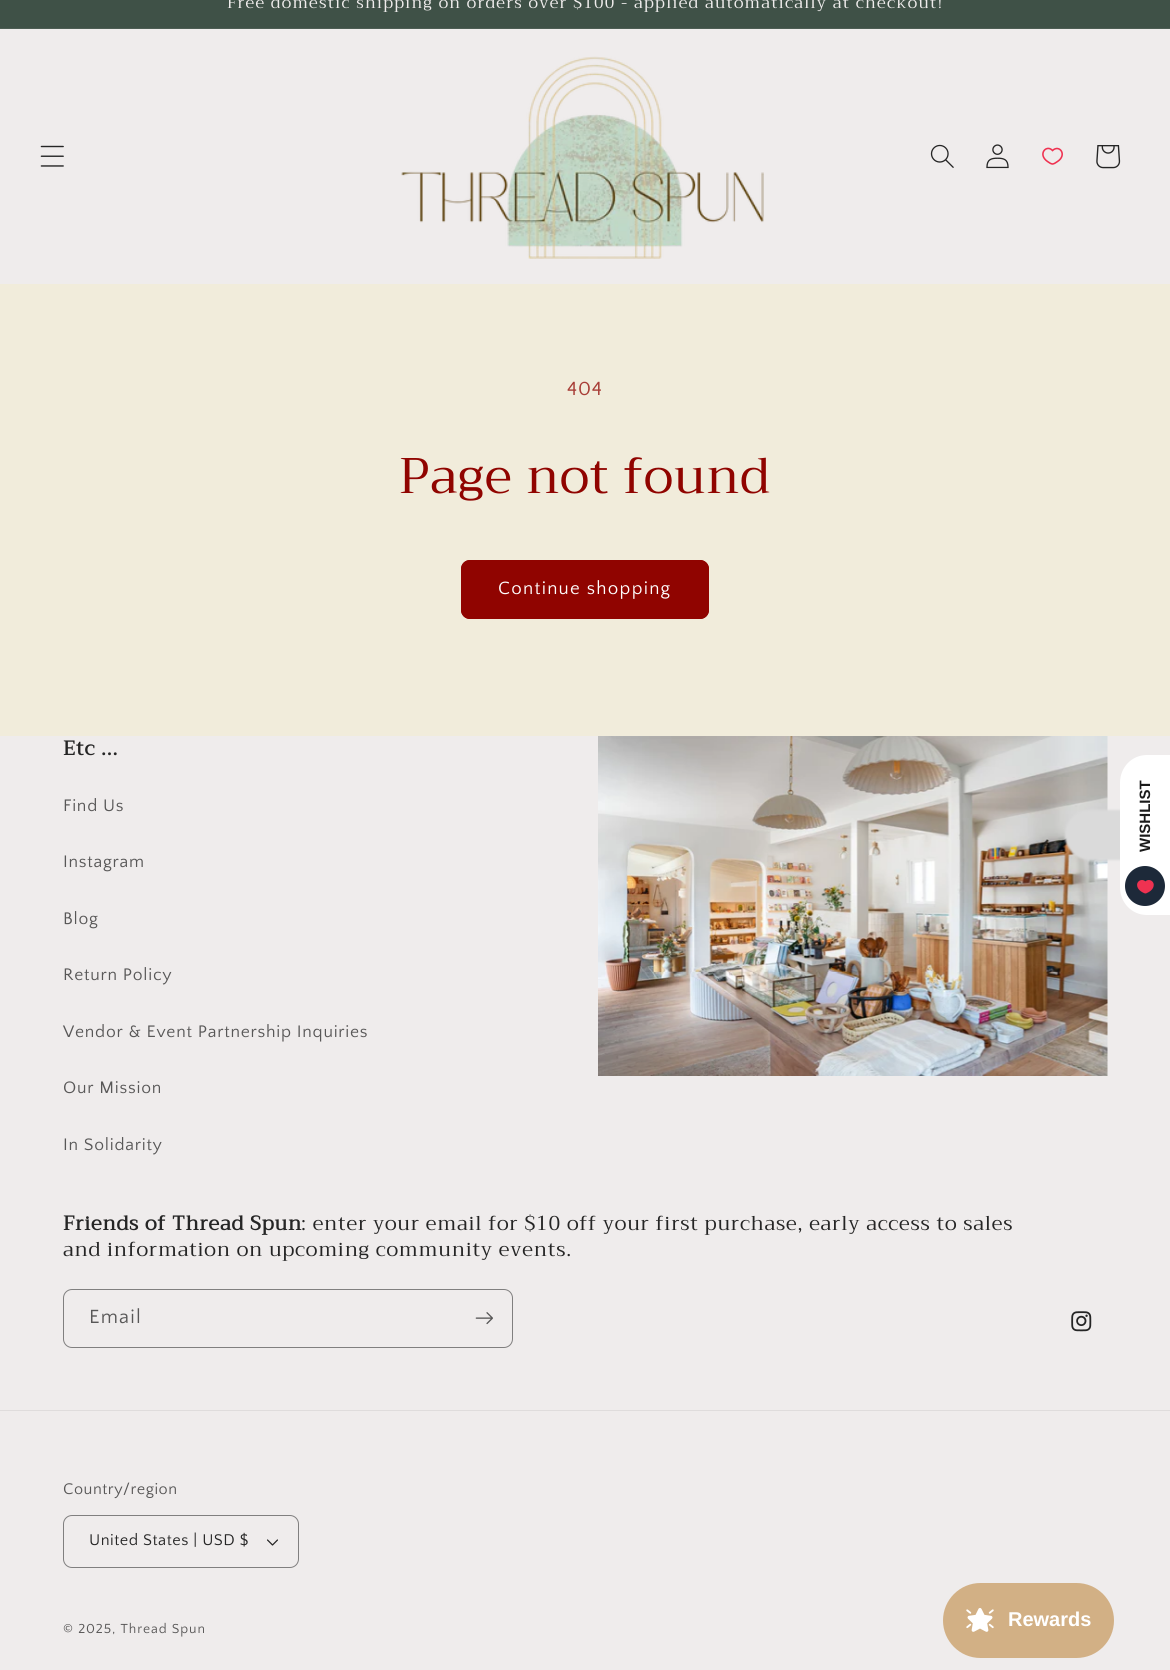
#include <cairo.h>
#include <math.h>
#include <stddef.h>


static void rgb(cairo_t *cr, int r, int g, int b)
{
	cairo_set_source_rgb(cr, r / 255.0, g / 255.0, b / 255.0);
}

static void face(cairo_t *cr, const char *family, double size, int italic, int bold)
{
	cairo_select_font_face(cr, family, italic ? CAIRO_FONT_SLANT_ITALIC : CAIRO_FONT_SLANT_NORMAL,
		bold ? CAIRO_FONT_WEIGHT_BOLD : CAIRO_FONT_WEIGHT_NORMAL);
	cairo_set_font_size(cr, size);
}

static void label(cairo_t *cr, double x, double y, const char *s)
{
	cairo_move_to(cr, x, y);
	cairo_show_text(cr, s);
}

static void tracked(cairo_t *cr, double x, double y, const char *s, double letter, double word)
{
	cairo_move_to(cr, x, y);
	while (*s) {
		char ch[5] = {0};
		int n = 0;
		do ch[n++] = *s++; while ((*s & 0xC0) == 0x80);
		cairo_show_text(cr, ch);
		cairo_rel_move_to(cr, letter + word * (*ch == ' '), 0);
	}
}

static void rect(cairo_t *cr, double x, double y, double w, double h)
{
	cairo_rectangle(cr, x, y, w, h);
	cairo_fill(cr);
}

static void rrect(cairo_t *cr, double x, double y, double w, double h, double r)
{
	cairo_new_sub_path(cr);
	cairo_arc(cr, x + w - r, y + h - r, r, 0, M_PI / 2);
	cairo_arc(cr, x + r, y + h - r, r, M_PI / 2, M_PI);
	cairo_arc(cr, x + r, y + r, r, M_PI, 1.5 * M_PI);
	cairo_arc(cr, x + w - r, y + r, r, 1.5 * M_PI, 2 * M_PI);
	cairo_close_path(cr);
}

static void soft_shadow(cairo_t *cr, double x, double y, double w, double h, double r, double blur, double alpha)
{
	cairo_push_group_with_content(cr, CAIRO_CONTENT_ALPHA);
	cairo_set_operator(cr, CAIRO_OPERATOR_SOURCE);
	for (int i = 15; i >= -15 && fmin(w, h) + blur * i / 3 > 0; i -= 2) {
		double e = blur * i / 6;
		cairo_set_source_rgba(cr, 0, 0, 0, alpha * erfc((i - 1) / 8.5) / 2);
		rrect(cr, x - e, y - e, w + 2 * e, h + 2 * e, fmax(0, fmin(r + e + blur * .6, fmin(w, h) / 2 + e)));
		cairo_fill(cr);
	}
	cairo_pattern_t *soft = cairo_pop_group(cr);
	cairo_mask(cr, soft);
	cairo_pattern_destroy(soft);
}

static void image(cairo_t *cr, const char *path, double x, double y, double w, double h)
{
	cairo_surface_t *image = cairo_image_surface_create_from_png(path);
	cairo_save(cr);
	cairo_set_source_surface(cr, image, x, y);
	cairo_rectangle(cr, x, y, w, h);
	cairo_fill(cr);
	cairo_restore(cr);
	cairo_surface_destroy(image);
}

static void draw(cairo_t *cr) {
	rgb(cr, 241, 236, 219);
	cairo_paint(cr);
	rgb(cr, 63, 81, 71);
	rect(cr, 0, 0, 1170, 28);
	rgb(cr, 77, 93, 84);
	rect(cr, 0, 28, 1170, 1);
	face(cr, "Trirong", 16.25, 0, 0);
	rgb(cr, 239, 236, 236);
	tracked(cr, 227, 8, "Free domestic shipping on orders over $100 - applied automatically at checkout!", 1.25, 0);
	rect(cr, 0, 29, 1170, 255);
	image(cr, "image0.png", 40, 145, 24, 22);
	image(cr, "image1.png", 401, 56, 363, 203);
	image(cr, "image2.png", 930, 144, 24, 24);
	image(cr, "image3.png", 986, 144, 23, 25);
	cairo_new_path(cr);
	cairo_move_to(cr, 1052, 150);
	cairo_line_to(cr, 1052.5, 150.5);
	cairo_curve_to(cr, 1059.5, 144, 1067.5, 155, 1057.5, 161.5);
	cairo_curve_to(cr, 1056, 162.5, 1054, 164, 1052.5, 164);
	cairo_curve_to(cr, 1051, 164, 1049, 162.5, 1047.5, 161.5);
	cairo_curve_to(cr, 1037.5, 154.5, 1046, 144.5, 1052, 150);
	cairo_close_path(cr);
	rgb(cr, 239, 50, 81);
	cairo_set_line_width(cr, 1.6);
	cairo_stroke(cr);
	image(cr, "image4.png", 1096, 145, 25, 24);
	face(cr, "Quattrocento Sans", 20, 0, 0);
	rgb(cr, 168, 62, 55);
	tracked(cr, 567, 395, "404", 0.75, 0);
	face(cr, "Trirong", 50, 0, 0);
	rgb(cr, 144, 4, 0);
	tracked(cr, 399, 493, "Page not found", 0.75, 0);
	rrect(cr, 461, 560, 248, 59, 9);
	cairo_fill(cr);
	rrect(cr, 461.5, 560.5, 247, 58, 8.5);
	cairo_set_line_width(cr, 1);
	cairo_stroke(cr);
	face(cr, "Quattrocento Sans", 18.75, 0, 0);
	rgb(cr, 255, 255, 255);
	tracked(cr, 498, 594, "Continue shopping", 1.25, 0);
	rgb(cr, 239, 236, 236);
	rect(cr, 0, 736, 1170, 934);
	face(cr, "Trirong", 20, 0, 1);
	rgb(cr, 37, 37, 37);
	tracked(cr, 63, 755, "Etc ...", 0.75, 0);
	face(cr, "Quattrocento Sans", 17.5, 0, 0);
	rgb(cr, 88, 87, 87);
	tracked(cr, 63, 811, "Find Us", 0.75, 0);
	tracked(cr, 63, 867, "Instagram", 0.75, 0);
	tracked(cr, 63, 924, "Blog", 0.75, 0);
	tracked(cr, 63, 980, "Return Policy", 0.75, 0);
	tracked(cr, 63, 1037, "Vendor & Event Partnership Inquiries", 0.75, 0);
	tracked(cr, 63, 1093, "Our Mission", 0.75, 0);
	tracked(cr, 63, 1150, "In Solidarity", 0.75, 0);
	image(cr, "image5.png", 598, 736, 510, 340);
	face(cr, "Trirong", 20, 0, 1);
	rgb(cr, 37, 37, 37);
	tracked(cr, 63, 1230, "Friends of Thread Spun", 0.75, 0);
	face(cr, "Trirong", 20, 0, 0);
	tracked(cr, 301, 1230, ": enter your email for $10 off your first purchase, early access to sales", 0.75, 0);
	tracked(cr, 63, 1256, "and information on upcoming community events.", 0.75, 0);
	rrect(cr, 63.5, 1289.5, 449, 58, 8.5);
	rgb(cr, 128, 127, 127);
	cairo_stroke(cr);
	face(cr, "Quattrocento Sans", 20, 0, 0);
	rgb(cr, 88, 87, 87);
	tracked(cr, 89, 1323, "Email", 1.25, 0);
	image(cr, "image6.png", 475, 1312, 18, 13);
	image(cr, "image7.png", 1071, 1311, 21, 21);
	rgb(cr, 223, 220, 220);
	rect(cr, 0, 1410, 1170, 1);
	face(cr, "Quattrocento Sans", 16.25, 0, 0);
	rgb(cr, 88, 87, 87);
	tracked(cr, 63, 1494, "Country/region", 0.5, 0);
	image(cr, "image8.png", 267, 1539, 11, 7);
	rrect(cr, 63.5, 1515.5, 235, 52, 8.5);
	rgb(cr, 128, 127, 127);
	cairo_stroke(cr);
	rgb(cr, 37, 37, 37);
	tracked(cr, 89, 1545, "United States | USD $", 0.5, 0);
	face(cr, "Quattrocento Sans", 13.75, 0, 0);
	rgb(cr, 88, 87, 87);
	tracked(cr, 63, 1633, "© 2025, Thread Spun", 0.9, 0);
	rgb(cr, 218, 218, 218);
	soft_shadow(cr, 1065, 810, 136, 50, 28, 1, 1);
	rgb(cr, 255, 255, 255);
	cairo_new_path(cr);
	cairo_move_to(cr, 1120, 887);
	cairo_line_to(cr, 1120, 783);
	cairo_curve_to(cr, 1120, 767, 1132, 755, 1147, 755);
	cairo_line_to(cr, 1170, 755);
	cairo_line_to(cr, 1170, 915);
	cairo_line_to(cr, 1147, 915);
	cairo_curve_to(cr, 1132, 915, 1120, 903, 1120, 887);
	cairo_close_path(cr);
	cairo_fill(cr);
	face(cr, "Liberation Sans", 15, 0, 1);
	rgb(cr, 26, 26, 26);
	cairo_save(cr);
	cairo_translate(cr, 1150, 852);
	cairo_rotate(cr, -90 * M_PI / 180);
	label(cr, 0, 0, "WISHLIST");
	cairo_restore(cr);
	rgb(cr, 29, 41, 57);
	cairo_new_path(cr);
	cairo_arc(cr, 1145, 886, 20, 0, 2 * M_PI);
	cairo_fill(cr);
	image(cr, "image9.png", 1137, 880, 17, 14);
	rgb(cr, 210, 176, 133);
	rrect(cr, 943, 1583, 171, 75, 37.5);
	cairo_fill(cr);
	image(cr, "image10.png", 966, 1608, 28, 24);
	face(cr, "Liberation Sans", 20, 0, 1);
	rgb(cr, 255, 255, 255);
	label(cr, 1008, 1626, "Rewards");
}

int main(void) {
	cairo_surface_t *surface = cairo_image_surface_create(CAIRO_FORMAT_RGB24, 1170, 1670);
	cairo_t *cr = cairo_create(surface);
	cairo_font_options_t *options = cairo_font_options_create();
	cairo_font_options_set_hint_metrics(options, CAIRO_HINT_METRICS_OFF);
	cairo_font_options_set_hint_style(options, CAIRO_HINT_STYLE_NONE);
	cairo_set_font_options(cr, options);
	cairo_set_miter_limit(cr, 4);
	draw(cr);
	cairo_surface_write_to_png(surface, "render.png");
	cairo_font_options_destroy(options);
	cairo_destroy(cr);
	cairo_surface_destroy(surface);
	return 0;
}
